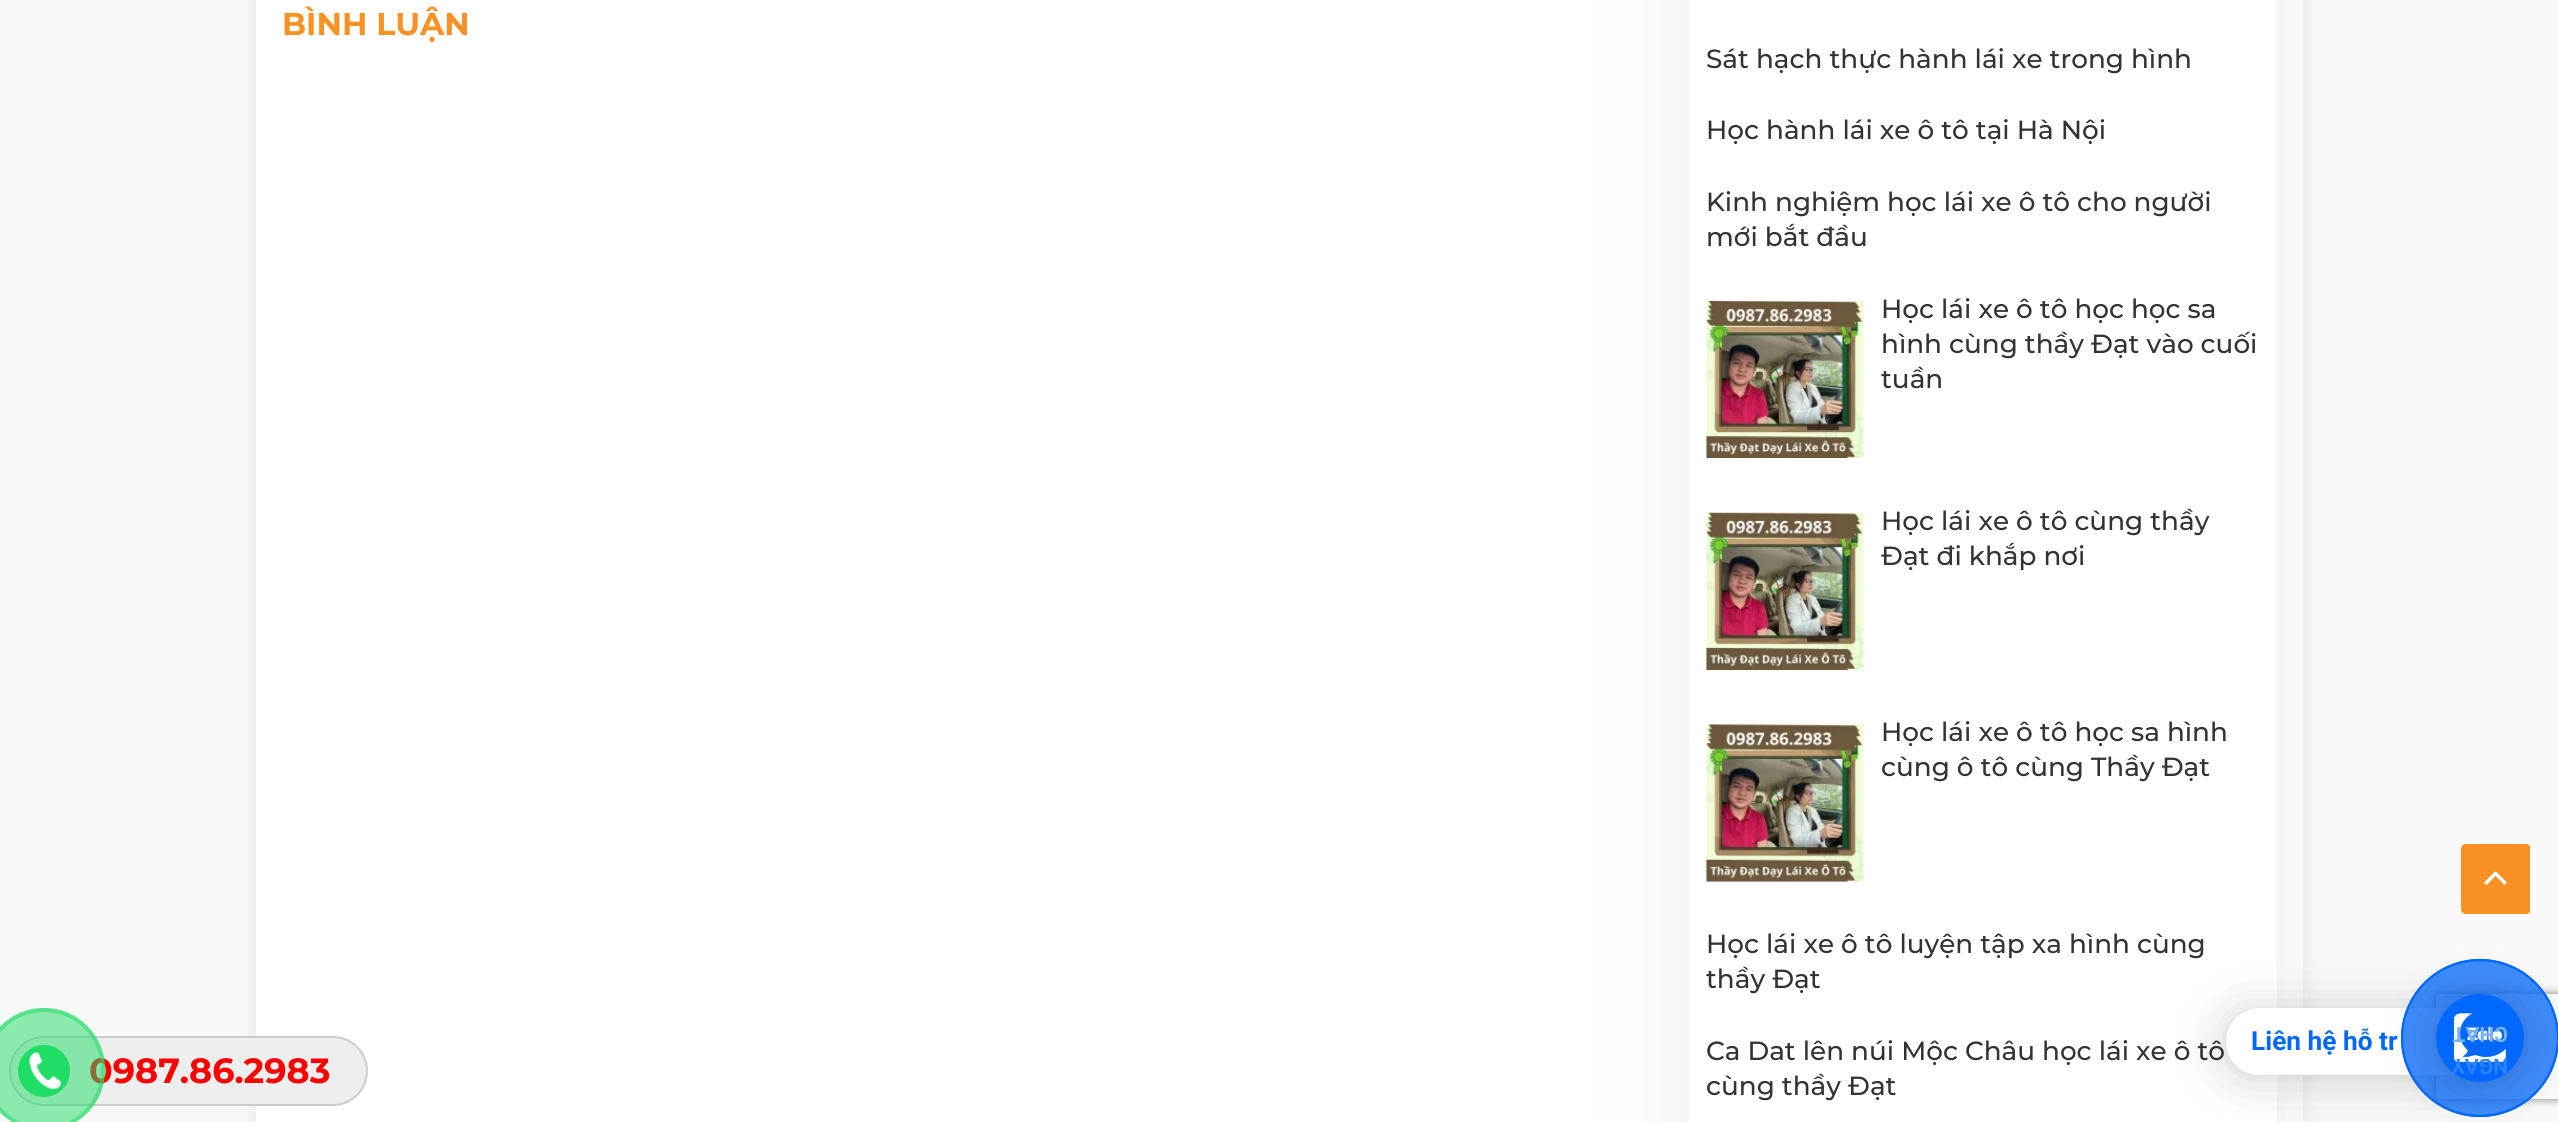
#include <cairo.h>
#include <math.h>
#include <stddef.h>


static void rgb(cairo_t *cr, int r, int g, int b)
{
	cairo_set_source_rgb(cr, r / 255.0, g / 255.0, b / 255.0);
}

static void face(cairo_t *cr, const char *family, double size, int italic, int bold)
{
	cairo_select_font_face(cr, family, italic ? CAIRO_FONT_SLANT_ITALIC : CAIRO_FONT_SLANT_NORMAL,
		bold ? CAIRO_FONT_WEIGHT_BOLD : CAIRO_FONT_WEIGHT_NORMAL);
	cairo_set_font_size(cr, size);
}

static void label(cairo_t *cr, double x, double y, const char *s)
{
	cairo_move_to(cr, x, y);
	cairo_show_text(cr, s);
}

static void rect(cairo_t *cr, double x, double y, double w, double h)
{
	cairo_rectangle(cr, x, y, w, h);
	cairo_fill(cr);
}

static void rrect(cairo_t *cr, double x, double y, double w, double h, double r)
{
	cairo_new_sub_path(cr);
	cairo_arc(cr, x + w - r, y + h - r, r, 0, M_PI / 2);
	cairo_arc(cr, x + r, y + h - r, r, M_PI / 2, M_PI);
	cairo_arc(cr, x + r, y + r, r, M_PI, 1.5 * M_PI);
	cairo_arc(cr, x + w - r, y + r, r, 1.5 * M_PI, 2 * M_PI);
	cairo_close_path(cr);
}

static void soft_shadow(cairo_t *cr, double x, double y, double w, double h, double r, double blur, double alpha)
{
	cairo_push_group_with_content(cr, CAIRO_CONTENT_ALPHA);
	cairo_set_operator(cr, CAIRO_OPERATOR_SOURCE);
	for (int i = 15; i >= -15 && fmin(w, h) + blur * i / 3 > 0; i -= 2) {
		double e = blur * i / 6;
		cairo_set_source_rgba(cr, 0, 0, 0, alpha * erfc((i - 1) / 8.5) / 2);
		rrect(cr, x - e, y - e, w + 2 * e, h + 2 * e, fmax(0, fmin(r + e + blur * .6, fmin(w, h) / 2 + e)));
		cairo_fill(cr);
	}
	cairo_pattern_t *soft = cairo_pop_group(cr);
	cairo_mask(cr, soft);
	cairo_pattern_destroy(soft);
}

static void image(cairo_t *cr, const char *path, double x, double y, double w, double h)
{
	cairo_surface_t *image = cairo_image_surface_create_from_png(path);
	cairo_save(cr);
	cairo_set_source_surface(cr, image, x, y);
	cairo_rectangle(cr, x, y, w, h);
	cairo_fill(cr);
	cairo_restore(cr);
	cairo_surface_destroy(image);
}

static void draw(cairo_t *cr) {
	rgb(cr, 249, 249, 249);
	cairo_paint(cr);
	rgb(cr, 50, 50, 50);
	soft_shadow(cr, 256, -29, 2047, 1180, 0, 9.5, 0.11);
	rgb(cr, 255, 255, 255);
	rect(cr, 256, 0, 2047, 1122);
	face(cr, "Montserrat", 31.5, 0, 1);
	rgb(cr, 249, 145, 36);
	label(cr, 282, 35, "BÌNH LUẬN");
	cairo_save(cr);
	cairo_rectangle(cr, 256, 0, 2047, 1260);
	cairo_clip(cr);
	rgb(cr, 54, 57, 73);
	soft_shadow(cr, 1689, -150, 588, 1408, 0, 52.5, 0.09);
	cairo_restore(cr);
	rgb(cr, 255, 255, 255);
	rect(cr, 1689, 0, 588, 1122);
	face(cr, "Montserrat Medium", 26.25, 0, 0);
	rgb(cr, 51, 51, 51);
	label(cr, 1706, 68, "Sát hạch thực hành lái xe trong hình");
	label(cr, 1706, 139, "Học hành lái xe ô tô tại Hà Nội");
	label(cr, 1706, 211, "Kinh nghiệm học lái xe ô tô cho người");
	label(cr, 1706, 246, "mới bắt đầu");
	image(cr, "image0.png", 1706, 300, 158, 159);
	label(cr, 1881, 318, "Học lái xe ô tô học học sa");
	label(cr, 1881, 353, "hình cùng thầy Đạt vào cuối");
	label(cr, 1881, 388, "tuần");
	image(cr, "image1.png", 1706, 512, 158, 158);
	label(cr, 1881, 530, "Học lái xe ô tô cùng thầy");
	label(cr, 1881, 565, "Đạt đi khắp nơi");
	image(cr, "image2.png", 1706, 724, 158, 158);
	label(cr, 1881, 741, "Học lái xe ô tô học sa hình");
	label(cr, 1881, 776, "cùng ô tô cùng Thầy Đạt");
	label(cr, 1706, 953, "Học lái xe ô tô luyện tập xa hình cùng");
	label(cr, 1706, 988, "thầy Đạt");
	label(cr, 1706, 1060, "Ca Dat lên núi Mộc Châu học lái xe ô tô");
	label(cr, 1706, 1095, "cùng thầy Đạt");
	cairo_save(cr);
	rrect(cr, 2461, 844, 70, 70, 5);
	cairo_clip(cr);
	rgb(cr, 249, 145, 36);
	cairo_new_path(cr);
	cairo_move_to(cr, 2466, 844);
	cairo_line_to(cr, 2530, 844);
	cairo_line_to(cr, 2530, 914);
	cairo_line_to(cr, 2466, 914);
	cairo_curve_to(cr, 2463, 914, 2461, 912, 2461, 909);
	cairo_line_to(cr, 2461, 849);
	cairo_curve_to(cr, 2461, 846, 2463, 844, 2466, 844);
	cairo_close_path(cr);
	cairo_fill(cr);
	cairo_restore(cr);
	rgb(cr, 255, 255, 255);
	cairo_new_path(cr);
	cairo_move_to(cr, 2486.5, 885);
	cairo_line_to(cr, 2495.5, 876);
	cairo_line_to(cr, 2504.5, 885);
	cairo_line_to(cr, 2507, 882.5);
	cairo_line_to(cr, 2495.5, 871);
	cairo_line_to(cr, 2484, 882.5);
	cairo_close_path(cr);
	cairo_fill(cr);
	cairo_save(cr);
	cairo_set_fill_rule(cr, CAIRO_FILL_RULE_EVEN_ODD);
	cairo_new_path(cr);
	cairo_move_to(cr, 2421, 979);
	cairo_line_to(cr, 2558, 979);
	cairo_line_to(cr, 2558, 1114);
	cairo_line_to(cr, 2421, 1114);
	cairo_close_path(cr);
	cairo_move_to(cr, 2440, 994);
	cairo_line_to(cr, 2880, 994);
	cairo_curve_to(cr, 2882, 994, 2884, 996, 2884, 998);
	cairo_line_to(cr, 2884, 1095);
	cairo_curve_to(cr, 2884, 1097, 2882, 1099, 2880, 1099);
	cairo_line_to(cr, 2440, 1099);
	cairo_curve_to(cr, 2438, 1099, 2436, 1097, 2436, 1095);
	cairo_line_to(cr, 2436, 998);
	cairo_curve_to(cr, 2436, 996, 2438, 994, 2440, 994);
	cairo_close_path(cr);
	cairo_clip(cr);
	rgb(cr, 128, 128, 128);
	soft_shadow(cr, 2436, 994, 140, 105, 4, 4.5, 1);
	cairo_restore(cr);
	rgb(cr, 238, 238, 238);
	rrect(cr, 10, 1037, 357, 68, 34);
	cairo_fill_preserve(cr);
	rgb(cr, 204, 204, 204);
	cairo_stroke(cr);
	face(cr, "Montserrat", 35, 0, 1);
	rgb(cr, 255, 0, 0);
	label(cr, 89, 1083, "0987.86.2983");
	cairo_set_source_rgba(cr, 0.122, 0.867, 0.396, 0.5);
	rrect(cr, -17, 1008, 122, 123, 61);
	cairo_fill(cr);
	rrect(cr, -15, 1010, 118, 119, 59);
	cairo_set_line_width(cr, 4);
	cairo_stroke(cr);
	rgb(cr, 31, 221, 101);
	cairo_arc(cr, 44, 1071, 26, 0, 2 * M_PI);
	cairo_fill(cr);
	image(cr, "image3.png", 29, 1052, 32, 38);
	rgb(cr, 0, 0, 0);
	soft_shadow(cr, 2226, 1012, 231, 66, 33, 28, 0.16);
	soft_shadow(cr, 2226, 1010, 231, 66, 33, 5, 0.06);
	rgb(cr, 255, 255, 255);
	cairo_new_path(cr);
	cairo_move_to(cr, 2259.5, 1008);
	cairo_line_to(cr, 2457, 1008);
	cairo_line_to(cr, 2457, 1075);
	cairo_line_to(cr, 2259.5, 1075);
	cairo_curve_to(cr, 2241, 1075, 2226, 1060, 2226, 1041.5);
	cairo_curve_to(cr, 2226, 1023, 2241, 1008, 2259.5, 1008);
	cairo_close_path(cr);
	cairo_fill(cr);
	face(cr, "Roboto", 26.25, 0, 1);
	rgb(cr, 0, 104, 255);
	label(cr, 2251, 1050, "Liên hệ hỗ tr");
	cairo_set_source_rgba(cr, 0, 0.408, 1, 0.5);
	cairo_new_path(cr);
	cairo_arc(cr, 2480, 1038, 78, 0, 2 * M_PI);
	cairo_fill_preserve(cr);
	rgb(cr, 0, 104, 255);
	cairo_set_line_width(cr, 2);
	cairo_stroke(cr);
	cairo_set_source_rgba(cr, 0, 0.408, 1, 0.5);
	cairo_arc(cr, 2480, 1038, 78, 0, 2 * M_PI);
	cairo_fill_preserve(cr);
	rgb(cr, 0, 104, 255);
	cairo_stroke(cr);
	rgb(cr, 0, 0, 0);
	soft_shadow(cr, 2436, 998, 88, 87, 43.5, 28, 0.16);
	soft_shadow(cr, 2436, 996, 88, 87, 43.5, 5, 0.06);
	rgb(cr, 0, 104, 255);
	cairo_arc(cr, 2480, 1038, 44, 0, 2 * M_PI);
	cairo_fill(cr);
	image(cr, "image4.png", 2454, 1013, 52, 49);
	face(cr, "Roboto", 21, 0, 1);
	rgb(cr, 121, 176, 255);
	cairo_save(cr);
	cairo_translate(cr, 2508, 1027);
	cairo_rotate(cr, 180 * M_PI / 180);
	label(cr, 0, 0, "CHAT");
	cairo_restore(cr);
	rgb(cr, 46, 131, 255);
	cairo_save(cr);
	cairo_translate(cr, 2508, 1059);
	cairo_rotate(cr, 180 * M_PI / 180);
	label(cr, 0, 0, "NGAY");
	cairo_restore(cr);
}

int main(void) {
	cairo_surface_t *surface = cairo_image_surface_create(CAIRO_FORMAT_RGB24, 2558, 1122);
	cairo_t *cr = cairo_create(surface);
	cairo_font_options_t *options = cairo_font_options_create();
	cairo_font_options_set_hint_metrics(options, CAIRO_HINT_METRICS_OFF);
	cairo_font_options_set_hint_style(options, CAIRO_HINT_STYLE_NONE);
	cairo_set_font_options(cr, options);
	cairo_set_miter_limit(cr, 4);
	draw(cr);
	cairo_surface_write_to_png(surface, "render.png");
	cairo_font_options_destroy(options);
	cairo_destroy(cr);
	cairo_surface_destroy(surface);
	return 0;
}
